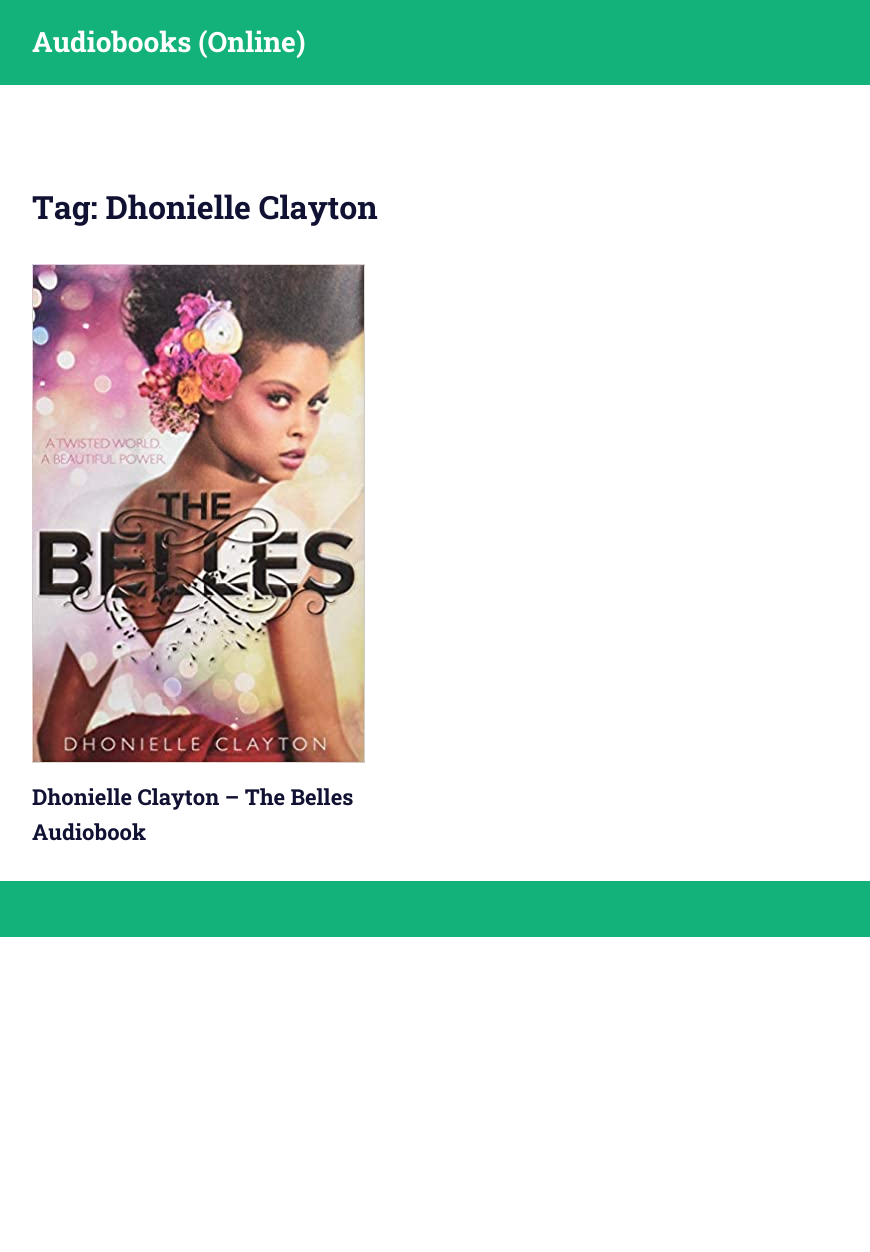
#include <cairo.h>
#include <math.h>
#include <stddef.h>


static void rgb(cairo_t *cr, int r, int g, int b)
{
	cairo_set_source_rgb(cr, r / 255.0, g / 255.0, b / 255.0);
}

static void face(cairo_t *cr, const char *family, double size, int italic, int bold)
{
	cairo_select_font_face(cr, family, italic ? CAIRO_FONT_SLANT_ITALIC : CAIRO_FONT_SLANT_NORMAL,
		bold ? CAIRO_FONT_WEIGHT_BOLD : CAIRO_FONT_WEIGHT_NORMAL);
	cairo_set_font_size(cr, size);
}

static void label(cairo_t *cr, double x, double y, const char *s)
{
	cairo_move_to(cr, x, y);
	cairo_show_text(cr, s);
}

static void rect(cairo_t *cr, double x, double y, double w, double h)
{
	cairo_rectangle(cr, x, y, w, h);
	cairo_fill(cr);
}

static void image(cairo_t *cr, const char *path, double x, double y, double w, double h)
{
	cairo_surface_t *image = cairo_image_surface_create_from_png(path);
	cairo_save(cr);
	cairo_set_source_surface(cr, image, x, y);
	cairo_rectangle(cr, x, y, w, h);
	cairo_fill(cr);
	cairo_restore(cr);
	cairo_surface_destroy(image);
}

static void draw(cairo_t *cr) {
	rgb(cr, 255, 255, 255);
	cairo_paint(cr);
	rgb(cr, 19, 178, 122);
	rect(cr, 0, 0, 870, 85);
	face(cr, "Roboto Slab", 28, 0, 1);
	rgb(cr, 255, 255, 255);
	label(cr, 32, 52, "Audiobooks (Online)");
	face(cr, "Roboto Slab", 32, 0, 1);
	rgb(cr, 17, 17, 51);
	label(cr, 32, 219, "Tag: Dhonielle Clayton");
	image(cr, "image0.png", 32, 264, 333, 499);
	face(cr, "Roboto Slab", 22, 0, 1);
	label(cr, 32, 805, "Dhonielle Clayton – The Belles");
	label(cr, 32, 840, "Audiobook");
	rgb(cr, 19, 178, 122);
	rect(cr, 0, 881, 870, 56);
}

int main(void) {
	cairo_surface_t *surface = cairo_image_surface_create(CAIRO_FORMAT_RGB24, 870, 1252);
	cairo_t *cr = cairo_create(surface);
	cairo_font_options_t *options = cairo_font_options_create();
	cairo_font_options_set_hint_metrics(options, CAIRO_HINT_METRICS_OFF);
	cairo_font_options_set_hint_style(options, CAIRO_HINT_STYLE_NONE);
	cairo_set_font_options(cr, options);
	cairo_set_miter_limit(cr, 4);
	draw(cr);
	cairo_surface_write_to_png(surface, "render.png");
	cairo_font_options_destroy(options);
	cairo_destroy(cr);
	cairo_surface_destroy(surface);
	return 0;
}
